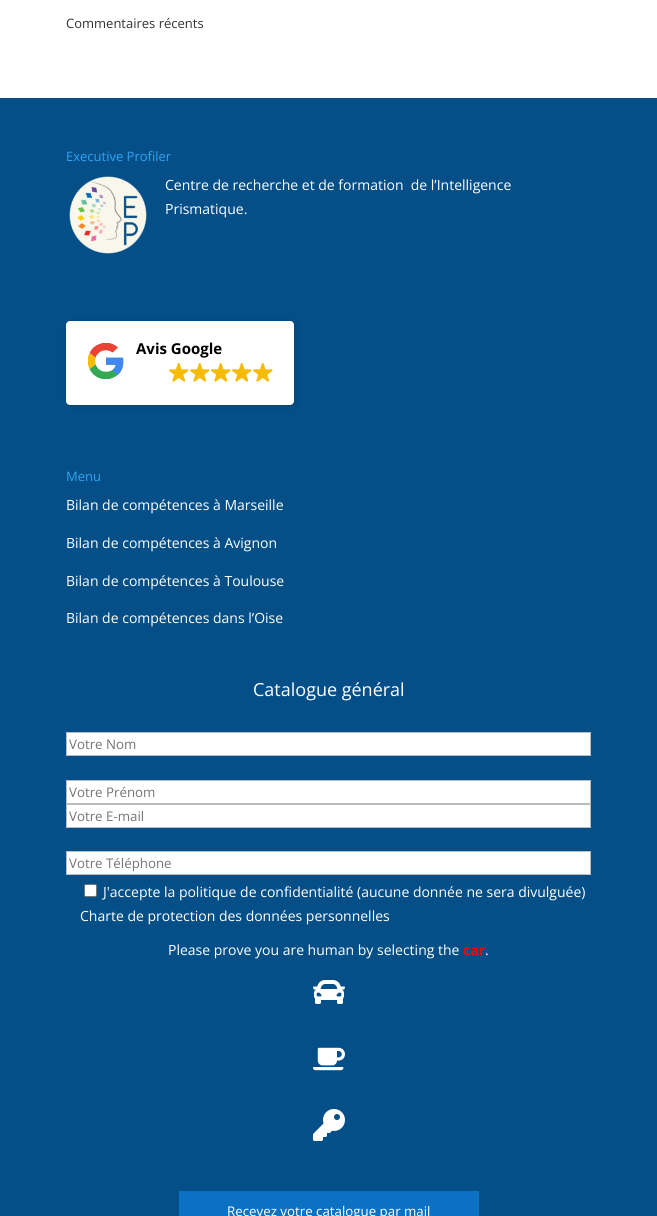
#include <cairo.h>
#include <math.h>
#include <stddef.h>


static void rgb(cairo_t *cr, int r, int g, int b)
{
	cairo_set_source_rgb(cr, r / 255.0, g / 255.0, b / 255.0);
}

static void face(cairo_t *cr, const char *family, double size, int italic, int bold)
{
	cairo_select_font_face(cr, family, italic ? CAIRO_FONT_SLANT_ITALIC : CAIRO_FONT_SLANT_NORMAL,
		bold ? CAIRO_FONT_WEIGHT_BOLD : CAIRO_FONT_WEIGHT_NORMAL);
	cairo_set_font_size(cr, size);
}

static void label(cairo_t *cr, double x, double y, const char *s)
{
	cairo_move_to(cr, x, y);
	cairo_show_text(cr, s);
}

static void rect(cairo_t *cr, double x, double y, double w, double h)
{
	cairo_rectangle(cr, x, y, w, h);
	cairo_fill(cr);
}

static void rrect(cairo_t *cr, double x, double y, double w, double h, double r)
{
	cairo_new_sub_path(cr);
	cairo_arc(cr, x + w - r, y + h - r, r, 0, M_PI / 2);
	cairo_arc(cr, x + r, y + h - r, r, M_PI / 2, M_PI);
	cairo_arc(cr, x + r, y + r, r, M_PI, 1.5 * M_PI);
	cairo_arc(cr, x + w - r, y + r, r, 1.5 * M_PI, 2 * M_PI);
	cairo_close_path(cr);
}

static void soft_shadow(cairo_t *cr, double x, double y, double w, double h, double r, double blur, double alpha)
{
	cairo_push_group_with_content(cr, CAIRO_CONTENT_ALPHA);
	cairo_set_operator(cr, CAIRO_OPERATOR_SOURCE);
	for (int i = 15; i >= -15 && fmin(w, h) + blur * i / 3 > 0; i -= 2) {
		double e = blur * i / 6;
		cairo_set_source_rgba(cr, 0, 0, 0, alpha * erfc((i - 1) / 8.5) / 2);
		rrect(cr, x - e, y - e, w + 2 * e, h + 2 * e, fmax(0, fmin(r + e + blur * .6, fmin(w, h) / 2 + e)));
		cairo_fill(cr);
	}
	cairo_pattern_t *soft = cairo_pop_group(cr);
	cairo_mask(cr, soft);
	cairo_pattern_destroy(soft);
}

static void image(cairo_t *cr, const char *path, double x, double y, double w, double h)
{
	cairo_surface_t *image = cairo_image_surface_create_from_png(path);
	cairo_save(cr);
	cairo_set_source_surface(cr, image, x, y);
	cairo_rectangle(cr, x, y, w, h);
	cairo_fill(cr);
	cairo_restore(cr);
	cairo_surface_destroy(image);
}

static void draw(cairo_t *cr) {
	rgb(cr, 255, 255, 255);
	cairo_paint(cr);
	face(cr, "Open Sans", 13, 0, 0);
	rgb(cr, 51, 51, 51);
	label(cr, 66, 28, "Commentaires récents");
	rgb(cr, 4, 79, 136);
	rect(cr, 0, 98, 657, 1118);
	rgb(cr, 46, 163, 242);
	label(cr, 66, 161, "Executive Profiler");
	image(cr, "image0.png", 69, 176, 78, 78);
	face(cr, "Open Sans", 14, 0, 0);
	rgb(cr, 255, 255, 255);
	label(cr, 165, 190, "Centre de recherche et de formation  de l’Intelligence");
	label(cr, 165, 214, "Prismatique.");
	rgb(cr, 0, 0, 0);
	soft_shadow(cr, 67, 322, 228, 84, 4, 3.5, 0.13);
	rgb(cr, 255, 255, 255);
	rrect(cr, 66, 321, 228, 84, 4);
	cairo_fill(cr);
	image(cr, "image1.png", 87, 342, 37, 38);
	face(cr, "Open Sans", 15, 0, 1);
	rgb(cr, 0, 0, 0);
	label(cr, 136, 354, "Avis Google");
	image(cr, "image2.png", 169, 363, 20, 19);
	image(cr, "image2.png", 190, 363, 20, 19);
	image(cr, "image2.png", 211, 363, 20, 19);
	image(cr, "image2.png", 232, 363, 20, 19);
	image(cr, "image2.png", 253, 363, 20, 19);
	face(cr, "Open Sans", 13, 0, 0);
	rgb(cr, 46, 163, 242);
	label(cr, 66, 481, "Menu");
	face(cr, "Open Sans", 14, 0, 0);
	rgb(cr, 255, 255, 255);
	label(cr, 66, 510, "Bilan de compétences à Marseille");
	label(cr, 66, 548, "Bilan de compétences à Avignon");
	label(cr, 66, 586, "Bilan de compétences à Toulouse");
	label(cr, 66, 623, "Bilan de compétences dans l’Oise");
	face(cr, "Open Sans", 18, 0, 0);
	label(cr, 253, 696, "Catalogue général");
	cairo_rectangle(cr, 66.5, 732.5, 524, 23);
	cairo_fill_preserve(cr);
	rgb(cr, 187, 187, 187);
	cairo_set_line_width(cr, 1);
	cairo_stroke(cr);
	face(cr, "Open Sans", 13.3, 0, 0);
	rgb(cr, 117, 117, 117);
	label(cr, 69, 749, "Votre Nom");
	rgb(cr, 255, 255, 255);
	cairo_rectangle(cr, 66.5, 780.5, 524, 23);
	cairo_fill_preserve(cr);
	rgb(cr, 187, 187, 187);
	cairo_stroke(cr);
	rgb(cr, 117, 117, 117);
	label(cr, 69, 797, "Votre Prénom");
	rgb(cr, 255, 255, 255);
	cairo_rectangle(cr, 66.5, 804.5, 524, 23);
	cairo_fill_preserve(cr);
	rgb(cr, 187, 187, 187);
	cairo_stroke(cr);
	rgb(cr, 117, 117, 117);
	label(cr, 69, 821, "Votre E-mail");
	rgb(cr, 255, 255, 255);
	cairo_rectangle(cr, 66.5, 851.5, 524, 23);
	cairo_fill_preserve(cr);
	rgb(cr, 187, 187, 187);
	cairo_stroke(cr);
	rgb(cr, 117, 117, 117);
	label(cr, 69, 868, "Votre Téléphone");
	rgb(cr, 255, 255, 255);
	rrect(cr, 84.5, 884.5, 12, 12, 1.5);
	cairo_fill_preserve(cr);
	rgb(cr, 118, 118, 118);
	cairo_stroke(cr);
	face(cr, "Open Sans", 14, 0, 0);
	rgb(cr, 255, 255, 255);
	label(cr, 103, 897, "J'accepte la politique de confidentialité (aucune donnée ne sera divulguée)");
	label(cr, 80, 921, "Charte de protection des données personnelles");
	label(cr, 168, 955, "Please prove you are human by selecting the");
	face(cr, "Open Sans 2", 14, 0, 1);
	rgb(cr, 255, 0, 0);
	label(cr, 463, 955, "car");
	face(cr, "Open Sans", 14, 0, 0);
	rgb(cr, 255, 255, 255);
	label(cr, 485, 955, ".");
	image(cr, "image3.png", 313, 980, 32, 24);
	image(cr, "image4.png", 313, 1047, 32, 24);
	image(cr, "image5.png", 313, 1109, 32, 32);
	rgb(cr, 12, 113, 195);
	rect(cr, 179, 1191, 300, 25);
	face(cr, "Open Sans", 13.3, 0, 0);
	rgb(cr, 255, 255, 255);
	label(cr, 227, 1216, "Recevez votre catalogue par mail");
}

int main(void) {
	cairo_surface_t *surface = cairo_image_surface_create(CAIRO_FORMAT_RGB24, 657, 1216);
	cairo_t *cr = cairo_create(surface);
	cairo_font_options_t *options = cairo_font_options_create();
	cairo_font_options_set_hint_metrics(options, CAIRO_HINT_METRICS_OFF);
	cairo_font_options_set_hint_style(options, CAIRO_HINT_STYLE_NONE);
	cairo_set_font_options(cr, options);
	cairo_set_miter_limit(cr, 4);
	draw(cr);
	cairo_surface_write_to_png(surface, "render.png");
	cairo_font_options_destroy(options);
	cairo_destroy(cr);
	cairo_surface_destroy(surface);
	return 0;
}
